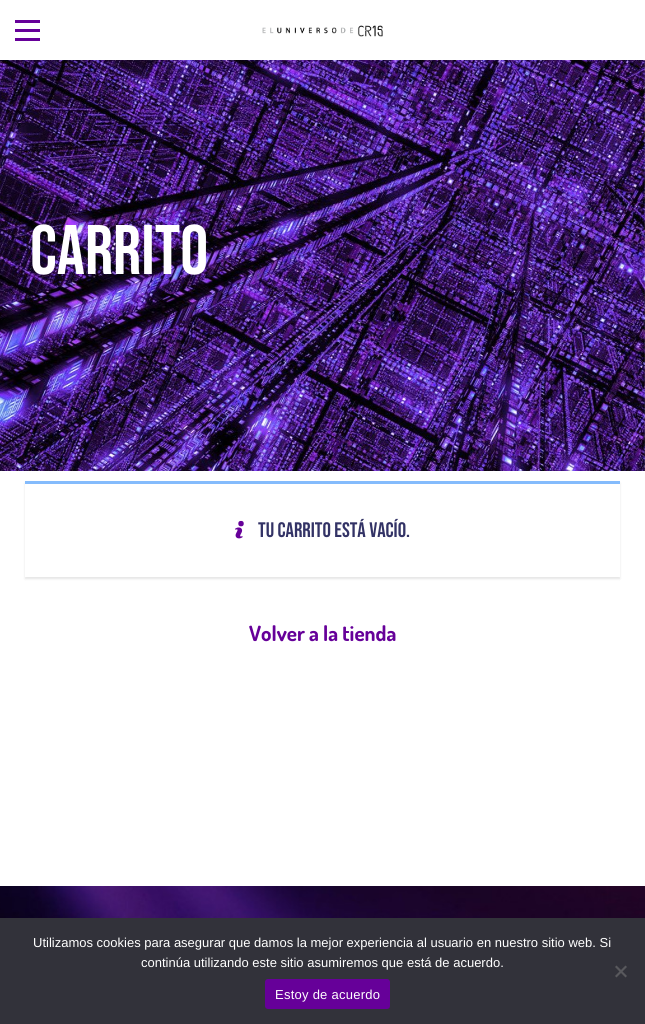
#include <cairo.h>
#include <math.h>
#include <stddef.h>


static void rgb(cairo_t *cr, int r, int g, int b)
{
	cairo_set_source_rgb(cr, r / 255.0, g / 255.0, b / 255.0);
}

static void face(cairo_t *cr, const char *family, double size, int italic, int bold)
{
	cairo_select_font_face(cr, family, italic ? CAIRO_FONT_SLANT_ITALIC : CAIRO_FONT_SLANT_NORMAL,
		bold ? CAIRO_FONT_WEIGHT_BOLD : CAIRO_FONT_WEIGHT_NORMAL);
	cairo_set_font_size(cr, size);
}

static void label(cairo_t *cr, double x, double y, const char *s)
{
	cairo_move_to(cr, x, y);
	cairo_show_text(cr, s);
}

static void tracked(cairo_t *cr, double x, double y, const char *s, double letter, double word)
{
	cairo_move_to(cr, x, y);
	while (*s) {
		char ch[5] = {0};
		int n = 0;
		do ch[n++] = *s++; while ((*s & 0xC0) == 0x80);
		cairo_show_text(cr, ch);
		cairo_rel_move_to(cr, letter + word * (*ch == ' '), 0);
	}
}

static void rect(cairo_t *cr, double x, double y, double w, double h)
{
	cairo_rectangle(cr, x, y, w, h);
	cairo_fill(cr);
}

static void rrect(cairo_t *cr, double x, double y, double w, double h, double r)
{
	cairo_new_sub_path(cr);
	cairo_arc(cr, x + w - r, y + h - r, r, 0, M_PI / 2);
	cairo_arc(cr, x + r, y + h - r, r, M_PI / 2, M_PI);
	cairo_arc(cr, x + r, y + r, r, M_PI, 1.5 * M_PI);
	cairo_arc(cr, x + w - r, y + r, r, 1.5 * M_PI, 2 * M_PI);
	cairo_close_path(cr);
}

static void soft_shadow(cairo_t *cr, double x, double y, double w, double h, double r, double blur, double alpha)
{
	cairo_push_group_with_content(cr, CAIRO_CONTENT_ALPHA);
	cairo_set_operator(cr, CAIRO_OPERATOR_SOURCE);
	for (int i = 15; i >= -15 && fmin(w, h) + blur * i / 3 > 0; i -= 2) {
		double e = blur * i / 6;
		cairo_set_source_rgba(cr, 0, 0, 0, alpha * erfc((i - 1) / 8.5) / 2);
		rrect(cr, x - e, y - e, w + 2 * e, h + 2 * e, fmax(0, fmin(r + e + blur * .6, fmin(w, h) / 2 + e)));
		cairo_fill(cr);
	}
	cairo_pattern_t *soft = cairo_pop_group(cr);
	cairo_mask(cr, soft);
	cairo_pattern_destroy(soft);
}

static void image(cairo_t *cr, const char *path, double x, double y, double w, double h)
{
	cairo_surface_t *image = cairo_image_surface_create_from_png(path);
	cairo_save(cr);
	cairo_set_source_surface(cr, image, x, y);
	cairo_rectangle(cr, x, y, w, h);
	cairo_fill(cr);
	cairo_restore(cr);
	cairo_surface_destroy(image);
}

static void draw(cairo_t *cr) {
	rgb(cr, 255, 255, 255);
	cairo_paint(cr);
	rgb(cr, 102, 0, 153);
	rect(cr, 15, 29, 25, 3);
	rect(cr, 15, 20, 25, 3);
	rect(cr, 15, 38, 25, 3);
	image(cr, "image0.png", 262, 25, 121, 12);
	image(cr, "image1.png", 0, 60, 645, 411);
	face(cr, "Bebas Neue", 70, 0, 0);
	rgb(cr, 255, 255, 255);
	label(cr, 30, 274, "Carrito");
	cairo_save(cr);
	cairo_set_fill_rule(cr, CAIRO_FILL_RULE_EVEN_ODD);
	cairo_new_path(cr);
	cairo_move_to(cr, 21, 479);
	cairo_line_to(cr, 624, 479);
	cairo_line_to(cr, 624, 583);
	cairo_line_to(cr, 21, 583);
	cairo_close_path(cr);
	cairo_move_to(cr, 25, 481);
	cairo_line_to(cr, 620, 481);
	cairo_line_to(cr, 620, 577);
	cairo_line_to(cr, 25, 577);
	cairo_close_path(cr);
	cairo_clip(cr);
	rgb(cr, 0, 0, 0);
	soft_shadow(cr, 25, 483, 595, 96, 0, 1, 0.1);
	cairo_restore(cr);
	rgb(cr, 132, 187, 252);
	rect(cr, 25, 481, 595, 3);
	image(cr, "image2.png", 235, 520, 9, 19);
	face(cr, "Bebas Neue", 21, 0, 0);
	rgb(cr, 51, 51, 102);
	label(cr, 258, 537, "Tu carrito está vacío.");
	face(cr, "Dosis", 21, 0, 1);
	rgb(cr, 102, 0, 153);
	label(cr, 249, 641, "Volver a la tienda");
	image(cr, "image3.png", 0, 886, 645, 32);
	rgb(cr, 50, 50, 58);
	rect(cr, 0, 918, 645, 106);
	face(cr, "Liberation Sans", 13, 0, 0);
	rgb(cr, 255, 255, 255);
	label(cr, 33, 947, "Utilizamos cookies para asegurar que damos la mejor experiencia al usuario en nuestro sitio web. Si");
	label(cr, 141, 967, "continúa utilizando este sitio asumiremos que está de acuerdo.");
	rgb(cr, 89, 89, 93);
	cairo_new_path(cr);
	cairo_move_to(cr, 625.5, 965.5);
	cairo_line_to(cr, 627, 967);
	cairo_line_to(cr, 616.5, 977.5);
	cairo_line_to(cr, 615, 976);
	cairo_close_path(cr);
	cairo_fill(cr);
	cairo_new_path(cr);
	cairo_move_to(cr, 615, 967);
	cairo_line_to(cr, 616.5, 965.5);
	cairo_line_to(cr, 627, 976);
	cairo_line_to(cr, 625.5, 977.5);
	cairo_close_path(cr);
	cairo_fill(cr);
	rgb(cr, 102, 0, 153);
	rrect(cr, 265, 979, 125, 30, 3);
	cairo_fill(cr);
	rgb(cr, 255, 255, 255);
	tracked(cr, 275, 999, "Estoy de acuerdo", 0.25, 0);
}

int main(void) {
	cairo_surface_t *surface = cairo_image_surface_create(CAIRO_FORMAT_RGB24, 645, 1024);
	cairo_t *cr = cairo_create(surface);
	cairo_font_options_t *options = cairo_font_options_create();
	cairo_font_options_set_hint_metrics(options, CAIRO_HINT_METRICS_OFF);
	cairo_font_options_set_hint_style(options, CAIRO_HINT_STYLE_NONE);
	cairo_set_font_options(cr, options);
	cairo_set_miter_limit(cr, 4);
	draw(cr);
	cairo_surface_write_to_png(surface, "render.png");
	cairo_font_options_destroy(options);
	cairo_destroy(cr);
	cairo_surface_destroy(surface);
	return 0;
}
